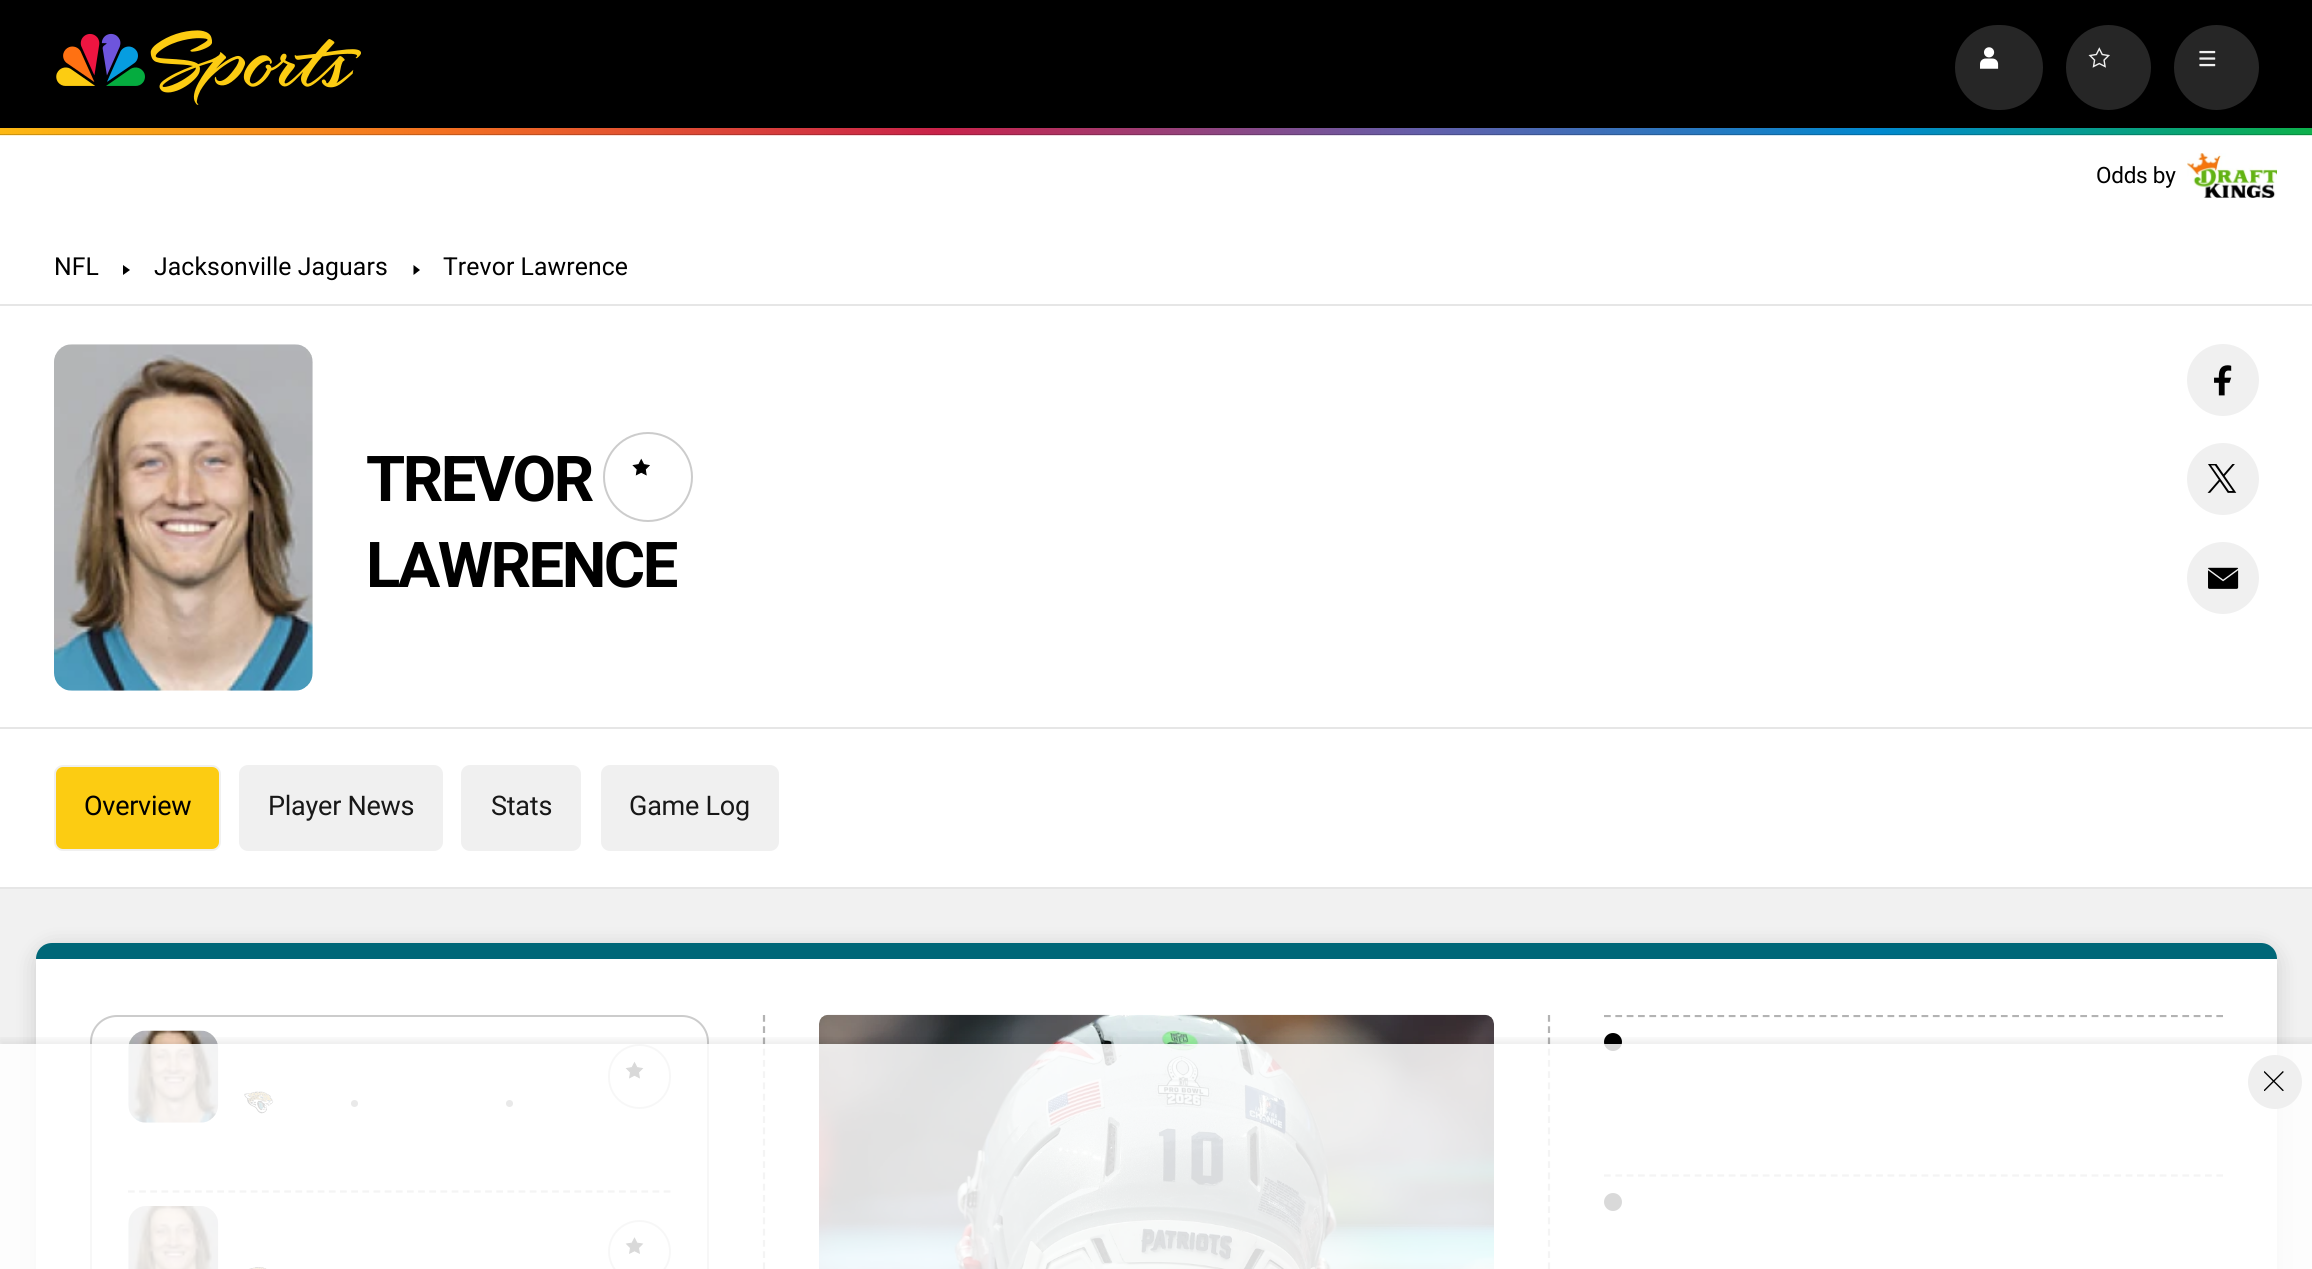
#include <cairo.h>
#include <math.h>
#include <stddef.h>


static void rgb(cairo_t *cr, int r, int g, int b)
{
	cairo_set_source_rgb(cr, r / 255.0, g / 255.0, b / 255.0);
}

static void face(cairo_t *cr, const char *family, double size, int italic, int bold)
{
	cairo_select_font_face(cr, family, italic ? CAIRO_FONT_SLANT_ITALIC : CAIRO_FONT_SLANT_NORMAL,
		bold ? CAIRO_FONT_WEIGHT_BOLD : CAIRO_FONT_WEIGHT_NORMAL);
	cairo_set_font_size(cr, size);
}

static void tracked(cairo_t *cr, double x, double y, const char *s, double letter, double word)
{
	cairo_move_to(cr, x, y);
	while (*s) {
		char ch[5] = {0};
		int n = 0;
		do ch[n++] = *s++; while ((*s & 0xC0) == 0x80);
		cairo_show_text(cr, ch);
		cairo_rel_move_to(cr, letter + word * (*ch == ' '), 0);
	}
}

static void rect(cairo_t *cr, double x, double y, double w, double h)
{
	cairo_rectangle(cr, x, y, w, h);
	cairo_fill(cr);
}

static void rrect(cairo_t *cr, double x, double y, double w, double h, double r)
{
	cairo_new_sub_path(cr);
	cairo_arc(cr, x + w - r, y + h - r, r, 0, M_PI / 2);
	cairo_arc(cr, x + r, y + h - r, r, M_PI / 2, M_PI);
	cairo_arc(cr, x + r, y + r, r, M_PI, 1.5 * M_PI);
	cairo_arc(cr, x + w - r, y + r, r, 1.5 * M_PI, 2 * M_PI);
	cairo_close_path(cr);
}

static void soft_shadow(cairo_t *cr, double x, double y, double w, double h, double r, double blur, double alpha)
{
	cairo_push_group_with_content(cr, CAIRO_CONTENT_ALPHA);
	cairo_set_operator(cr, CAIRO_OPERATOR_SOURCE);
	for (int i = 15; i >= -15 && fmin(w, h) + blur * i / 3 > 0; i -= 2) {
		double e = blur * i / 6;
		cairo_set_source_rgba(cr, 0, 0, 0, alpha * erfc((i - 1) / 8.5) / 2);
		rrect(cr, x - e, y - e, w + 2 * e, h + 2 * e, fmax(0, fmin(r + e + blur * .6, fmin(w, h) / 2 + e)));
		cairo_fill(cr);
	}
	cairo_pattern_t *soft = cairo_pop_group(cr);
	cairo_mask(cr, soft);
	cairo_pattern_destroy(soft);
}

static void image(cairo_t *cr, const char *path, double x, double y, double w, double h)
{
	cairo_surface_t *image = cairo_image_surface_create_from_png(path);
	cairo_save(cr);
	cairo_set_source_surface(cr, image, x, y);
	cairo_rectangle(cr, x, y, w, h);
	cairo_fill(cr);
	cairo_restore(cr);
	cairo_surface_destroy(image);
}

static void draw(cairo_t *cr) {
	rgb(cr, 241, 241, 241);
	cairo_paint(cr);
	rgb(cr, 0, 0, 0);
	rect(cr, 0, 0, 2312, 135);
	image(cr, "image0.png", 56, 30, 305, 75);
	rgb(cr, 38, 38, 38);
	rrect(cr, 1955, 25, 88, 85, 42.5);
	cairo_fill(cr);
	image(cr, "image1.png", 1980, 47, 19, 22);
	cairo_arc(cr, 2108.5, 67.5, 42.5, 0, 2 * M_PI);
	cairo_fill(cr);
	image(cr, "image2.png", 2088, 47, 22, 21);
	cairo_arc(cr, 2216.5, 67.5, 42.5, 0, 2 * M_PI);
	cairo_fill(cr);
	image(cr, "image3.png", 2199, 50, 17, 17);
	rgb(cr, 255, 255, 255);
	rect(cr, 0, 135, 2312, 752);
	image(cr, "image4.png", 0, 128, 2312, 8);
	face(cr, "Roboto", 22.5, 0, 0);
	rgb(cr, 0, 0, 0);
	tracked(cr, 2096, 183, "Odds by", -0.25, 0);
	image(cr, "image5.png", 2187, 153, 90, 45);
	rgb(cr, 230, 230, 230);
	rect(cr, 0, 887, 2312, 2);
	rect(cr, 0, 304, 2312, 2);
	face(cr, "Roboto", 24.75, 0, 0);
	rgb(cr, 0, 0, 0);
	tracked(cr, 54, 275, "NFL", 0.1, 0);
	cairo_new_path(cr);
	cairo_move_to(cr, 130, 270);
	cairo_line_to(cr, 123, 265);
	cairo_line_to(cr, 123, 275);
	cairo_close_path(cr);
	cairo_fill(cr);
	tracked(cr, 154, 275, "Jacksonville Jaguars", 0.1, 0);
	cairo_new_path(cr);
	cairo_move_to(cr, 420, 270);
	cairo_line_to(cr, 413.5, 265);
	cairo_line_to(cr, 413.5, 275);
	cairo_close_path(cr);
	cairo_fill(cr);
	tracked(cr, 443, 275, "Trevor Lawrence", 0.1, 0);
	image(cr, "image6.png", 54, 344, 259, 347);
	face(cr, "Roboto", 63.25, 0, 1);
	tracked(cr, 366, 501, "TREVOR", -2.5, 0);
	cairo_new_path(cr);
	cairo_arc(cr, 648, 477, 44, 0, 2 * M_PI);
	rgb(cr, 204, 204, 204);
	cairo_stroke(cr);
	image(cr, "image7.png", 632, 458, 18, 18);
	rgb(cr, 0, 0, 0);
	tracked(cr, 366, 587, "LAWRENCE", -2.5, 0);
	rgb(cr, 240, 240, 240);
	cairo_new_path(cr);
	cairo_arc(cr, 2223, 380, 36, 0, 2 * M_PI);
	cairo_fill(cr);
	image(cr, "image8.png", 2214, 365, 18, 31);
	cairo_arc(cr, 2223, 479, 36, 0, 2 * M_PI);
	cairo_fill(cr);
	image(cr, "image9.png", 2207, 464, 30, 29);
	cairo_arc(cr, 2223, 578, 36, 0, 2 * M_PI);
	cairo_fill(cr);
	image(cr, "image10.png", 2208, 567, 31, 22);
	rgb(cr, 230, 230, 230);
	rect(cr, 0, 727, 2312, 2);
	rgb(cr, 252, 204, 18);
	rrect(cr, 55, 766, 165, 84, 8);
	cairo_fill_preserve(cr);
	rgb(cr, 240, 240, 240);
	cairo_stroke(cr);
	face(cr, "Roboto", 27, 0, 0);
	rgb(cr, 0, 0, 0);
	tracked(cr, 84, 815, "Overview", -0.25, 0);
	rgb(cr, 240, 240, 240);
	rrect(cr, 240, 766, 202, 84, 8);
	cairo_fill_preserve(cr);
	cairo_stroke(cr);
	rgb(cr, 24, 24, 24);
	tracked(cr, 268, 815, "Player News", -0.25, 0);
	rgb(cr, 240, 240, 240);
	rrect(cr, 462, 766, 118, 84, 8);
	cairo_fill_preserve(cr);
	cairo_stroke(cr);
	rgb(cr, 24, 24, 24);
	tracked(cr, 491, 815, "Stats", -0.25, 0);
	rgb(cr, 240, 240, 240);
	rrect(cr, 602, 766, 176, 84, 8);
	cairo_fill_preserve(cr);
	cairo_stroke(cr);
	rgb(cr, 24, 24, 24);
	tracked(cr, 629, 815, "Game Log", -0.25, 0);
	rgb(cr, 0, 0, 0);
	soft_shadow(cr, 36, 947, 2241, 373, 18, 11, 0.15);
	rgb(cr, 255, 255, 255);
	rrect(cr, 36, 943, 2241, 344, 18);
	cairo_fill(cr);
	rgb(cr, 0, 103, 120);
	cairo_new_path(cr);
	cairo_move_to(cr, 52, 943);
	cairo_line_to(cr, 2261, 943);
	cairo_curve_to(cr, 2270, 943, 2277, 950, 2277, 959);
	cairo_line_to(cr, 36, 959);
	cairo_curve_to(cr, 36, 950, 43, 943, 52, 943);
	cairo_close_path(cr);
	cairo_fill(cr);
	cairo_new_path(cr);
	cairo_move_to(cr, 764, 1015);
	cairo_line_to(cr, 764, 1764);
	rgb(cr, 179, 179, 179);
	cairo_set_line_width(cr, 2.2);
	cairo_set_dash(cr, (double[]){6.75, 4.5}, 2, 0);
	cairo_stroke(cr);
	rrect(cr, 91, 1016, 617, 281, 26);
	rgb(cr, 204, 204, 204);
	cairo_set_line_width(cr, 2);
	cairo_set_dash(cr, NULL, 0, 0);
	cairo_stroke(cr);
	image(cr, "image11.png", 128, 1030, 91, 93);
	image(cr, "image12.png", 244, 1091, 30, 23);
	rgb(cr, 106, 106, 106);
	cairo_arc(cr, 354.5, 1103.5, 3.5, 0, 2 * M_PI);
	cairo_fill(cr);
	cairo_arc(cr, 509.5, 1103.5, 3.5, 0, 2 * M_PI);
	cairo_fill(cr);
	rrect(cr, 609, 1045, 61, 63, 30.5);
	rgb(cr, 204, 204, 204);
	cairo_stroke(cr);
	image(cr, "image13.png", 625, 1061, 19, 18);
	cairo_new_path(cr);
	cairo_move_to(cr, 128, 1191.5);
	cairo_line_to(cr, 670.5, 1191.5);
	rgb(cr, 179, 179, 179);
	cairo_set_line_width(cr, 2.2);
	cairo_set_dash(cr, (double[]){6.75, 4.41}, 2, 0);
	cairo_stroke(cr);
	image(cr, "image14.png", 128, 1206, 91, 63);
	image(cr, "image15.png", 249, 1267, 18, 2);
	cairo_arc(cr, 639.5, 1251.5, 30.5, 0, 2 * M_PI);
	rgb(cr, 204, 204, 204);
	cairo_set_line_width(cr, 2);
	cairo_set_dash(cr, NULL, 0, 0);
	cairo_stroke(cr);
	image(cr, "image16.png", 625, 1237, 19, 17);
	image(cr, "image17.png", 819, 1014, 675, 255);
	cairo_new_path(cr);
	cairo_move_to(cr, 1549, 1015);
	cairo_line_to(cr, 1549, 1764);
	rgb(cr, 179, 179, 179);
	cairo_set_line_width(cr, 2.2);
	cairo_set_dash(cr, (double[]){6.75, 4.5}, 2, 0);
	cairo_stroke(cr);
	cairo_save(cr);
	cairo_rectangle(cr, 1550, 1015, 673, 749);
	cairo_clip(cr);
	cairo_new_path(cr);
	cairo_move_to(cr, 1604, 1016);
	cairo_line_to(cr, 2223, 1016);
	cairo_set_dash(cr, (double[]){6.75, 4.59}, 2, 0);
	cairo_stroke(cr);
	cairo_restore(cr);
	rgb(cr, 0, 0, 0);
	cairo_arc(cr, 1613, 1042, 9, 0, 2 * M_PI);
	cairo_fill(cr);
	cairo_new_path(cr);
	cairo_move_to(cr, 1604, 1175.5);
	cairo_line_to(cr, 2223, 1175.5);
	rgb(cr, 179, 179, 179);
	cairo_set_dash(cr, (double[]){6.75, 4.59}, 2, 0);
	cairo_stroke(cr);
	rgb(cr, 0, 0, 0);
	cairo_arc(cr, 1613, 1202, 9, 0, 2 * M_PI);
	cairo_fill(cr);
	cairo_save(cr);
	cairo_rectangle(cr, 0, 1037, 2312, 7);
	cairo_clip(cr);
	rgb(cr, 0, 0, 0);
	soft_shadow(cr, 0, 1040, 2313, 225, 0, 4.5, 0.08);
	cairo_restore(cr);
	cairo_set_source_rgba(cr, 1, 1, 1, 0.85);
	rect(cr, 0, 1044, 2312, 225);
	rgb(cr, 239, 239, 239);
	cairo_arc(cr, 2275, 1082, 27, 0, 2 * M_PI);
	cairo_fill(cr);
	image(cr, "image18.png", 2264, 1071, 20, 20);
}

int main(void) {
	cairo_surface_t *surface = cairo_image_surface_create(CAIRO_FORMAT_RGB24, 2312, 1269);
	cairo_t *cr = cairo_create(surface);
	cairo_font_options_t *options = cairo_font_options_create();
	cairo_font_options_set_hint_metrics(options, CAIRO_HINT_METRICS_OFF);
	cairo_font_options_set_hint_style(options, CAIRO_HINT_STYLE_NONE);
	cairo_set_font_options(cr, options);
	cairo_set_miter_limit(cr, 4);
	draw(cr);
	cairo_surface_write_to_png(surface, "render.png");
	cairo_font_options_destroy(options);
	cairo_destroy(cr);
	cairo_surface_destroy(surface);
	return 0;
}
